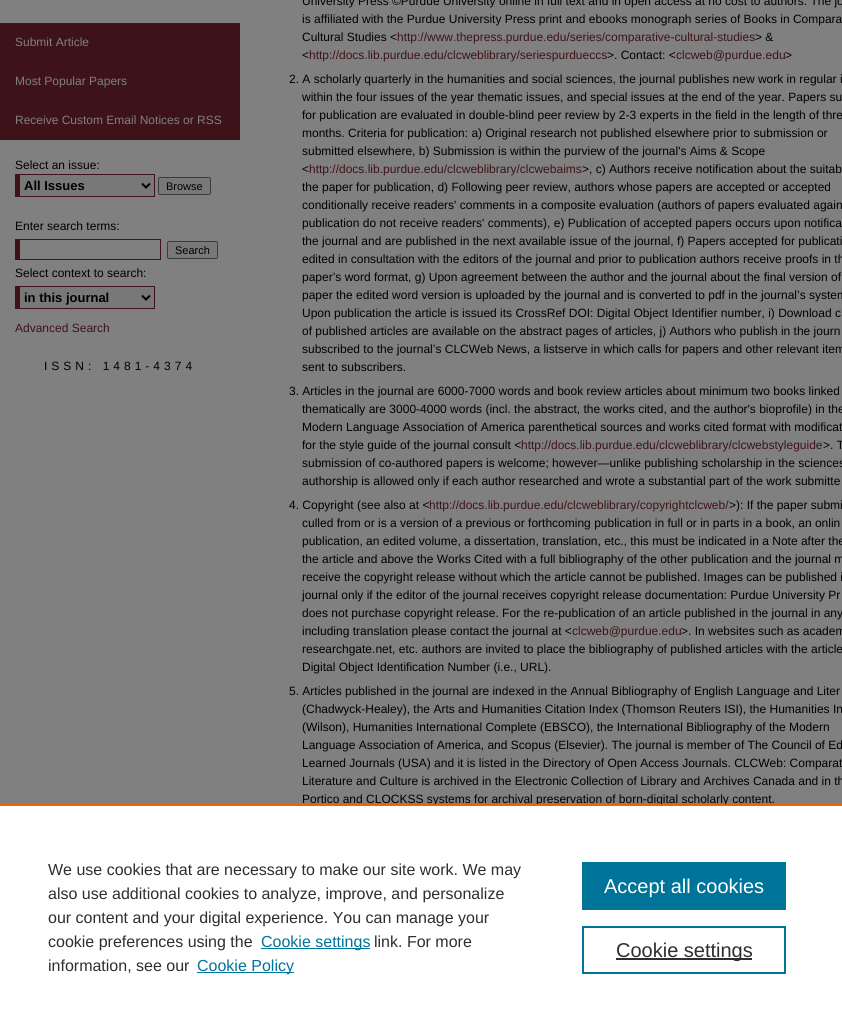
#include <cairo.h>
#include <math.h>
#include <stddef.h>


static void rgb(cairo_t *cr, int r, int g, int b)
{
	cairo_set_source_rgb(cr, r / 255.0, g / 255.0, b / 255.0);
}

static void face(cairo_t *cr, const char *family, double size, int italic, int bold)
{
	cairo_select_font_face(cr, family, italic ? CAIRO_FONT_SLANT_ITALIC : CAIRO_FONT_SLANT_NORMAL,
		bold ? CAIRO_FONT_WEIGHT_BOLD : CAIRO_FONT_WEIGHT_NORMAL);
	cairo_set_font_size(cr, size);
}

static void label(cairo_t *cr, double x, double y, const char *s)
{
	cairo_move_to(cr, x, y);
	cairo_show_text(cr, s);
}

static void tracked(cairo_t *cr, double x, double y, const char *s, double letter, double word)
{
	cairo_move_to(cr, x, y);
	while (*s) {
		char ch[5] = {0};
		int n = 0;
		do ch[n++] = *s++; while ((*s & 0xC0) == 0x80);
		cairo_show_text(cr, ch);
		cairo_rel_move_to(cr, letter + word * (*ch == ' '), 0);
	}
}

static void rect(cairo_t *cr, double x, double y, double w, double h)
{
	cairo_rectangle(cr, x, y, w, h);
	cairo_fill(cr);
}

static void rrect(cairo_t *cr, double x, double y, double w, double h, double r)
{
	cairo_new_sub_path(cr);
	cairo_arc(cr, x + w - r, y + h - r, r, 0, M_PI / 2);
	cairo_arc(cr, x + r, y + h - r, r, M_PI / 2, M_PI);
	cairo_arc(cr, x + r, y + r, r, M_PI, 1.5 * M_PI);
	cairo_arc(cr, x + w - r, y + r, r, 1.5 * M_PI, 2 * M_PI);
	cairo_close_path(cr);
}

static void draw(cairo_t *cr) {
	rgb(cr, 128, 128, 128);
	cairo_paint(cr);
	rgb(cr, 61, 18, 24);
	rect(cr, 0, 23, 240, 117);
	face(cr, "Liberation Sans", 12, 0, 0);
	rgb(cr, 128, 128, 128);
	label(cr, 15, 46, "Submit Article");
	label(cr, 15, 85, "Most Popular Papers");
	label(cr, 15, 124, "Receive Custom Email Notices or RSS");
	rgb(cr, 0, 0, 0);
	label(cr, 15, 169, "Select an issue:");
	rgb(cr, 120, 120, 120);
	rect(cr, 20, 175, 134, 21);
	rgb(cr, 61, 18, 24);
	rect(cr, 15, 174, 140, 1);
	rect(cr, 154, 174, 1, 23);
	rect(cr, 15, 196, 140, 1);
	rect(cr, 15, 174, 5, 23);
	cairo_new_path(cr);
	cairo_move_to(cr, 142, 183.5);
	cairo_line_to(cr, 146, 187.5);
	cairo_line_to(cr, 150, 183.5);
	rgb(cr, 0, 0, 0);
	cairo_stroke(cr);
	face(cr, "Liberation Sans", 13, 0, 1);
	label(cr, 24, 190, "All Issues");
	rgb(cr, 120, 120, 120);
	rrect(cr, 158.5, 177.5, 52, 17, 1.5);
	cairo_fill_preserve(cr);
	rgb(cr, 59, 59, 59);
	cairo_set_line_width(cr, 1);
	cairo_stroke(cr);
	face(cr, "Liberation Sans", 11, 0, 0);
	rgb(cr, 0, 0, 0);
	label(cr, 166, 190, "Browse");
	face(cr, "Liberation Sans", 12, 0, 0);
	label(cr, 15, 230, "Enter search terms:");
	rgb(cr, 61, 18, 24);
	rect(cr, 15, 239, 146, 1);
	rect(cr, 160, 239, 1, 21);
	rect(cr, 15, 259, 146, 1);
	rect(cr, 15, 239, 5, 21);
	rgb(cr, 120, 120, 120);
	rrect(cr, 167.5, 241.5, 50, 17, 1.5);
	cairo_fill_preserve(cr);
	rgb(cr, 59, 59, 59);
	cairo_stroke(cr);
	face(cr, "Liberation Sans", 11, 0, 0);
	rgb(cr, 0, 0, 0);
	label(cr, 175, 254, "Search");
	face(cr, "Liberation Sans", 12, 0, 0);
	label(cr, 15, 277, "Select context to search:");
	rgb(cr, 120, 120, 120);
	rect(cr, 20, 287, 134, 21);
	rgb(cr, 61, 18, 24);
	rect(cr, 15, 286, 140, 1);
	rect(cr, 154, 286, 1, 23);
	rect(cr, 15, 308, 140, 1);
	rect(cr, 15, 286, 5, 23);
	cairo_new_path(cr);
	cairo_move_to(cr, 142, 295.5);
	cairo_line_to(cr, 146, 299.5);
	cairo_line_to(cr, 150, 295.5);
	rgb(cr, 0, 0, 0);
	cairo_set_line_width(cr, 2);
	cairo_stroke(cr);
	face(cr, "Liberation Sans", 13, 0, 1);
	label(cr, 24, 302, "in this journal");
	face(cr, "Liberation Sans", 12, 0, 0);
	rgb(cr, 61, 18, 24);
	label(cr, 15, 332, "Advanced Search");
	rgb(cr, 0, 0, 0);
	tracked(cr, 44, 370, "ISSN: 1481-4374", 4, 0);
	label(cr, 302, 5, "University Press ©Purdue University online in full text and in open access at no cost to authors: The jo");
	label(cr, 302, 23, "is affiliated with the Purdue University Press print and ebooks monograph series of Books in Compara");
	label(cr, 302, 41, "Cultural Studies <");
	rgb(cr, 61, 18, 24);
	label(cr, 397, 41, "http://www.thepress.purdue.edu/series/comparative-cultural-studies");
	rgb(cr, 0, 0, 0);
	label(cr, 755, 41, "> &");
	label(cr, 302, 59, "<");
	rgb(cr, 61, 18, 24);
	label(cr, 309, 59, "http://docs.lib.purdue.edu/clcweblibrary/seriespurdueccs");
	rgb(cr, 0, 0, 0);
	label(cr, 607, 59, ">. Contact: <");
	rgb(cr, 61, 18, 24);
	label(cr, 676, 59, "clcweb@purdue.edu");
	rgb(cr, 0, 0, 0);
	label(cr, 785, 59, ">");
	label(cr, 289, 83, "2. A scholarly quarterly in the humanities and social sciences, the journal publishes new work in regular i");
	label(cr, 302, 101, "within the four issues of the year thematic issues, and special issues at the end of the year. Papers su");
	label(cr, 302, 119, "for publication are evaluated in double-blind peer review by 2-3 experts in the field in the length of thre");
	label(cr, 302, 137, "months. Criteria for publication: a) Original research not published elsewhere prior to submission or");
	label(cr, 302, 155, "submitted elsewhere, b) Submission is within the purview of the journal's Aims & Scope");
	label(cr, 302, 173, "<");
	rgb(cr, 61, 18, 24);
	label(cr, 309, 173, "http://docs.lib.purdue.edu/clcweblibrary/clcwebaims");
	rgb(cr, 0, 0, 0);
	label(cr, 582, 173, ">, c) Authors receive notification about the suitab");
	label(cr, 302, 191, "the paper for publication, d) Following peer review, authors whose papers are accepted or accepted");
	label(cr, 302, 209, "conditionally receive readers' comments in a composite evaluation (authors of papers evaluated again");
	label(cr, 302, 227, "publication do not receive readers' comments), e) Publication of accepted papers occurs upon notifica");
	label(cr, 302, 245, "the journal and are published in the next available issue of the journal, f) Papers accepted for publicati");
	label(cr, 302, 263, "edited in consultation with the editors of the journal and prior to publication authors receive proofs in th");
	label(cr, 302, 281, "paper’s word format, g) Upon agreement between the author and the journal about the final version of");
	label(cr, 302, 299, "paper the edited word version is uploaded by the journal and is converted to pdf in the journal’s system");
	label(cr, 302, 317, "Upon publication the article is issued its CrossRef DOI: Digital Object Identifier number, i) Download c");
	label(cr, 302, 335, "of published articles are available on the abstract pages of articles, j) Authors who publish in the journ");
	label(cr, 302, 353, "subscribed to the journal’s CLCWeb News, a listserve in which calls for papers and other relevant item");
	label(cr, 302, 371, "sent to subscribers.");
	label(cr, 289, 395, "3. Articles in the journal are 6000-7000 words and book review articles about minimum two books linked");
	label(cr, 302, 413, "thematically are 3000-4000 words (incl. the abstract, the works cited, and the author's bioprofile) in the");
	label(cr, 302, 431, "Modern Language Association of America parenthetical sources and works cited format with modificat");
	label(cr, 302, 449, "for the style guide of the journal consult <");
	rgb(cr, 61, 18, 24);
	label(cr, 521, 449, "http://docs.lib.purdue.edu/clcweblibrary/clcwebstyleguide");
	rgb(cr, 0, 0, 0);
	label(cr, 823, 449, ">. T");
	label(cr, 302, 467, "submission of co-authored papers is welcome; however—unlike publishing scholarship in the sciences");
	label(cr, 302, 485, "authorship is allowed only if each author researched and wrote a substantial part of the work submitte");
	label(cr, 289, 509, "4. Copyright (see also at <");
	rgb(cr, 61, 18, 24);
	label(cr, 429, 509, "http://docs.lib.purdue.edu/clcweblibrary/copyrightclcweb/");
	rgb(cr, 0, 0, 0);
	label(cr, 729, 509, ">): If the paper submi");
	label(cr, 302, 527, "culled from or is a version of a previous or forthcoming publication in full or in parts in a book, an onlin");
	label(cr, 302, 545, "publication, an edited volume, a dissertation, translation, etc., this must be indicated in a Note after the");
	label(cr, 302, 563, "the article and above the Works Cited with a full bibliography of the other publication and the journal m");
	label(cr, 302, 581, "receive the copyright release without which the article cannot be published. Images can be published i");
	label(cr, 302, 599, "journal only if the editor of the journal receives copyright release documentation: Purdue University Pr");
	label(cr, 302, 617, "does not purchase copyright release. For the re-publication of an article published in the journal in any");
	label(cr, 302, 635, "including translation please contact the journal at <");
	rgb(cr, 61, 18, 24);
	label(cr, 572, 635, "clcweb@purdue.edu");
	rgb(cr, 0, 0, 0);
	label(cr, 681, 635, ">. In websites such as academ");
	label(cr, 302, 653, "researchgate.net, etc. authors are invited to place the bibliography of published articles with the article");
	label(cr, 302, 671, "Digital Object Identification Number (i.e., URL).");
	label(cr, 289, 695, "5. Articles published in the journal are indexed in the Annual Bibliography of English Language and Liter");
	label(cr, 302, 713, "(Chadwyck-Healey), the Arts and Humanities Citation Index (Thomson Reuters ISI), the Humanities In");
	label(cr, 302, 731, "(Wilson), Humanities International Complete (EBSCO), the International Bibliography of the Modern");
	label(cr, 302, 749, "Language Association of America, and Scopus (Elsevier). The journal is member of The Council of Ed");
	label(cr, 302, 767, "Learned Journals (USA) and it is listed in the Directory of Open Access Journals. CLCWeb: Comparat");
	label(cr, 302, 785, "Literature and Culture is archived in the Electronic Collection of Library and Archives Canada and in th");
	label(cr, 302, 803, "Portico and CLOCKSS systems for archival preservation of born-digital scholarly content.");
	rgb(cr, 255, 255, 255);
	rect(cr, 0, 806, 842, 224);
	rgb(cr, 235, 101, 0);
	rect(cr, 0, 804, 842, 2);
	face(cr, "Liberation Sans", 16, 0, 0);
	rgb(cr, 46, 46, 46);
	label(cr, 48, 875, "We use cookies that are necessary to make our site work. We may");
	label(cr, 48, 899, "also use additional cookies to analyze, improve, and personalize");
	label(cr, 48, 923, "our content and your digital experience. You can manage your");
	label(cr, 48, 947, "cookie preferences using the");
	rgb(cr, 0, 115, 152);
	rect(cr, 261, 948, 109, 1);
	label(cr, 261, 947, "Cookie settings");
	rgb(cr, 46, 46, 46);
	label(cr, 374, 947, "link. For more");
	label(cr, 48, 971, "information, see our");
	rgb(cr, 0, 115, 152);
	rect(cr, 197, 972, 97, 1);
	label(cr, 197, 971, "Cookie Policy");
	rect(cr, 582, 862, 204, 48);
	face(cr, "Liberation Sans", 20, 0, 0);
	rgb(cr, 255, 255, 255);
	label(cr, 604, 893, "Accept all cookies");
	cairo_rectangle(cr, 583, 927, 202, 46);
	rgb(cr, 0, 115, 152);
	cairo_stroke(cr);
	rgb(cr, 46, 46, 46);
	rect(cr, 616, 958, 136, 2);
	label(cr, 616, 957, "Cookie settings");
}

int main(void) {
	cairo_surface_t *surface = cairo_image_surface_create(CAIRO_FORMAT_RGB24, 842, 1030);
	cairo_t *cr = cairo_create(surface);
	cairo_font_options_t *options = cairo_font_options_create();
	cairo_font_options_set_hint_metrics(options, CAIRO_HINT_METRICS_OFF);
	cairo_font_options_set_hint_style(options, CAIRO_HINT_STYLE_NONE);
	cairo_set_font_options(cr, options);
	cairo_set_miter_limit(cr, 4);
	draw(cr);
	cairo_surface_write_to_png(surface, "render.png");
	cairo_font_options_destroy(options);
	cairo_destroy(cr);
	cairo_surface_destroy(surface);
	return 0;
}
